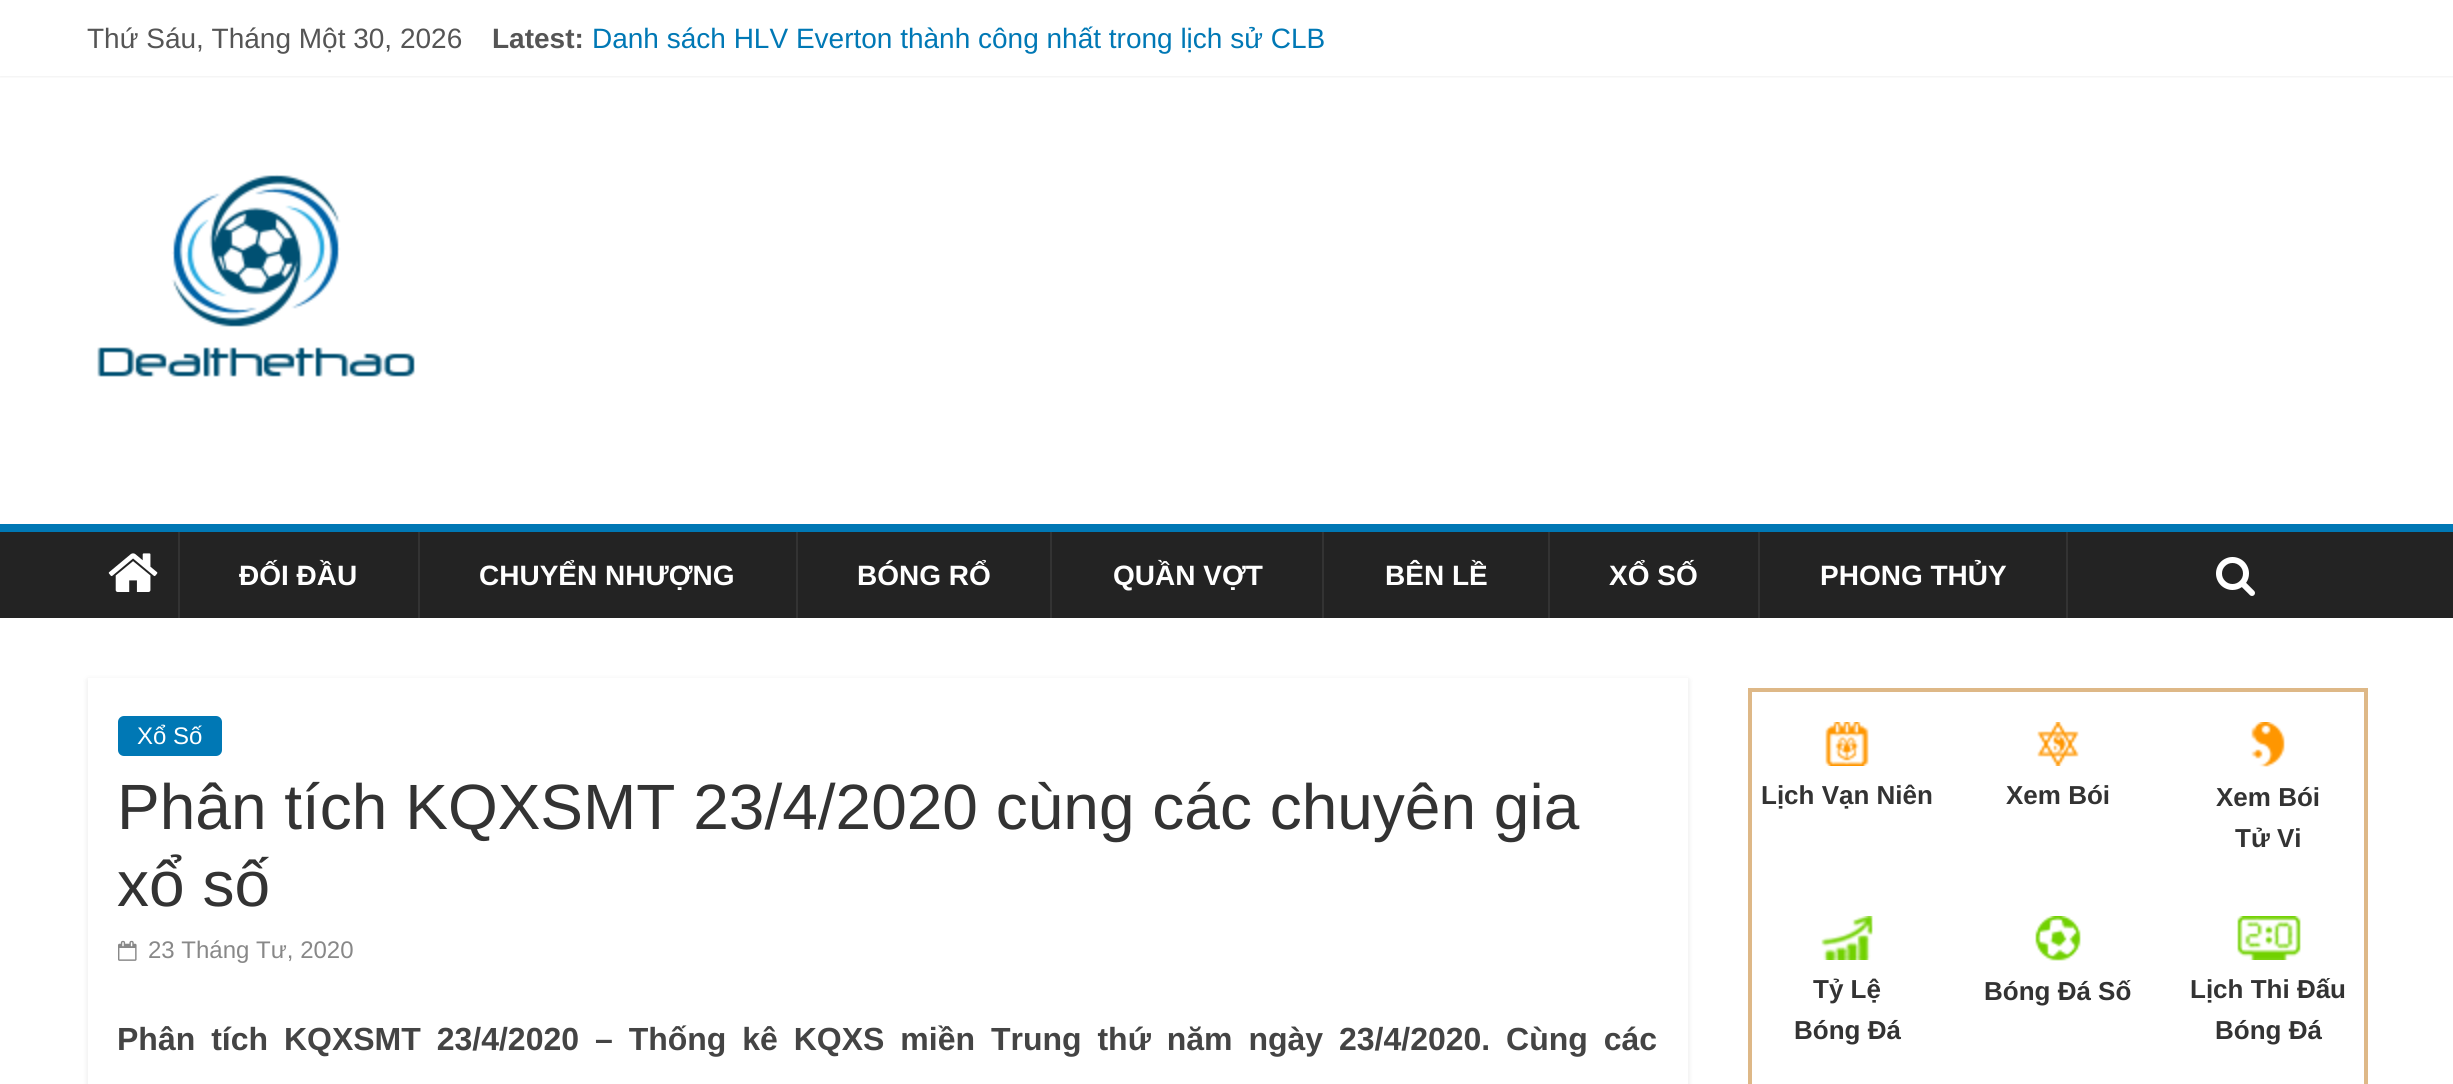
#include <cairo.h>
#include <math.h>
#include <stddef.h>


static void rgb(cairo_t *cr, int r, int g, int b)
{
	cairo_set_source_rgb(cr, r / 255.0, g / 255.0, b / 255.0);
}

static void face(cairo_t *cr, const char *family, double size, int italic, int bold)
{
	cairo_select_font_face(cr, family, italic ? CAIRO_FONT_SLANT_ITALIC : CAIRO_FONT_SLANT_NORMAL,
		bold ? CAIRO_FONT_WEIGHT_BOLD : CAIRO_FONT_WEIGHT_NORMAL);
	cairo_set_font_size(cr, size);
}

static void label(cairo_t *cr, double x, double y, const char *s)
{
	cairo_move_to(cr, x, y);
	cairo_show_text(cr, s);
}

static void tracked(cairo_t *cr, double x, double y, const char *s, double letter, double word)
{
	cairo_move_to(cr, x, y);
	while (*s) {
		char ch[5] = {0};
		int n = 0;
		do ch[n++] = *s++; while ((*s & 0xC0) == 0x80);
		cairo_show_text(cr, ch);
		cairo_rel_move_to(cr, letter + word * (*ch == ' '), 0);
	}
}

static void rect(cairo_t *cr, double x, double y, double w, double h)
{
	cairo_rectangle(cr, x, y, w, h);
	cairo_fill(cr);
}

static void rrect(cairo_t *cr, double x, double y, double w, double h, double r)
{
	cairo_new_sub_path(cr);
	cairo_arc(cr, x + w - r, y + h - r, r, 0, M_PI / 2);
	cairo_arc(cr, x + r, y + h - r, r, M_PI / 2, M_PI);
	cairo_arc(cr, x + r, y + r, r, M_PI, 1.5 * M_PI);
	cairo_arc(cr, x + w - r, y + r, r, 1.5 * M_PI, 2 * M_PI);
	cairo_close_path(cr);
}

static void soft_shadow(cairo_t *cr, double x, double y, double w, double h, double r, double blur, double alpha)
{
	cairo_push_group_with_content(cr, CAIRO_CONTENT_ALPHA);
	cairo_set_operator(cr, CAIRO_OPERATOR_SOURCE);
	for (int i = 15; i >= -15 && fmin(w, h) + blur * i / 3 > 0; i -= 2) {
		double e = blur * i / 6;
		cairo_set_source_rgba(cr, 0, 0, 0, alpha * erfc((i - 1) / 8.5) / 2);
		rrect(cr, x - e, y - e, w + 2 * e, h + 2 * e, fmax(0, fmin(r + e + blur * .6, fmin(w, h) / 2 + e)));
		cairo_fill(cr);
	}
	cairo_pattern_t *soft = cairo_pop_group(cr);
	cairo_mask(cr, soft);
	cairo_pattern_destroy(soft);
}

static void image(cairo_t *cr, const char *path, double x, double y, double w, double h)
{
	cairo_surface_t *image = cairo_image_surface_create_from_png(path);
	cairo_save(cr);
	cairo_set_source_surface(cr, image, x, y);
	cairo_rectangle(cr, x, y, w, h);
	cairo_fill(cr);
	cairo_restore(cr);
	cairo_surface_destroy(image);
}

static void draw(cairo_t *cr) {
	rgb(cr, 255, 255, 255);
	cairo_paint(cr);
	cairo_save(cr);
	cairo_rectangle(cr, 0, 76, 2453, 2);
	cairo_clip(cr);
	rgb(cr, 0, 0, 0);
	soft_shadow(cr, 0, 0, 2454, 76, 0, 2, 0.1);
	cairo_restore(cr);
	face(cr, "Liberation Sans", 28, 0, 0);
	rgb(cr, 85, 85, 85);
	label(cr, 87, 48, "Thứ Sáu, Tháng Một 30, 2026");
	face(cr, "Liberation Sans", 28, 0, 1);
	label(cr, 492, 48, "Latest:");
	face(cr, "Liberation Sans", 28, 0, 0);
	rgb(cr, 0, 120, 181);
	label(cr, 592, 48, "Danh sách HLV Everton thành công nhất trong lịch sử CLB");
	image(cr, "image0.png", 97, 174, 318, 203);
	rgb(cr, 35, 35, 35);
	rect(cr, 0, 532, 2453, 86);
	rgb(cr, 0, 120, 181);
	rect(cr, 0, 524, 2453, 8);
	rgb(cr, 51, 51, 51);
	rect(cr, 178, 532, 2, 86);
	image(cr, "image1.png", 108, 553, 50, 39);
	rect(cr, 418, 532, 2, 86);
	face(cr, "Liberation Sans", 28, 0, 1);
	rgb(cr, 255, 255, 255);
	label(cr, 239, 585, "ĐỐI ĐẦU");
	rgb(cr, 51, 51, 51);
	rect(cr, 796, 532, 2, 86);
	rgb(cr, 255, 255, 255);
	label(cr, 479, 585, "CHUYỂN NHƯỢNG");
	rgb(cr, 51, 51, 51);
	rect(cr, 1050, 532, 2, 86);
	rgb(cr, 255, 255, 255);
	label(cr, 857, 585, "BÓNG RỔ");
	rgb(cr, 51, 51, 51);
	rect(cr, 1322, 532, 2, 86);
	rgb(cr, 255, 255, 255);
	label(cr, 1113, 585, "QUẦN VỢT");
	rgb(cr, 51, 51, 51);
	rect(cr, 1548, 532, 2, 86);
	rgb(cr, 255, 255, 255);
	label(cr, 1385, 585, "BÊN LỀ");
	rgb(cr, 51, 51, 51);
	rect(cr, 1758, 532, 2, 86);
	rgb(cr, 255, 255, 255);
	label(cr, 1609, 585, "XỔ SỐ");
	rgb(cr, 51, 51, 51);
	rect(cr, 2066, 532, 2, 86);
	rgb(cr, 255, 255, 255);
	label(cr, 1820, 585, "PHONG THỦY");
	image(cr, "image2.png", 2216, 557, 39, 39);
	cairo_save(cr);
	cairo_set_fill_rule(cr, CAIRO_FILL_RULE_EVEN_ODD);
	cairo_new_path(cr);
	cairo_move_to(cr, 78, 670);
	cairo_line_to(cr, 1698, 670);
	cairo_line_to(cr, 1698, 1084);
	cairo_line_to(cr, 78, 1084);
	cairo_close_path(cr);
	cairo_move_to(cr, 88, 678);
	cairo_line_to(cr, 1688, 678);
	cairo_line_to(cr, 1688, 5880);
	cairo_line_to(cr, 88, 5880);
	cairo_close_path(cr);
	cairo_clip(cr);
	rgb(cr, 0, 0, 0);
	soft_shadow(cr, 88, 680, 1600, 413, 0, 3, 0.1);
	cairo_restore(cr);
	rgb(cr, 0, 120, 181);
	rrect(cr, 118, 716, 104, 40, 6);
	cairo_fill(cr);
	face(cr, "Liberation Sans", 24, 0, 0);
	rgb(cr, 255, 255, 255);
	label(cr, 137, 744, "Xổ Số");
	face(cr, "Liberation Sans", 64, 0, 0);
	rgb(cr, 51, 51, 51);
	label(cr, 117, 829, "Phân tích KQXSMT 23/4/2020 cùng các chuyên gia");
	label(cr, 117, 906, "xổ số");
	image(cr, "image3.png", 118, 940, 19, 21);
	face(cr, "Liberation Sans", 24, 0, 0);
	rgb(cr, 136, 136, 136);
	label(cr, 148, 958, "23 Tháng Tư, 2020");
	face(cr, "Liberation Sans", 32, 0, 1);
	rgb(cr, 68, 68, 68);
	tracked(cr, 117, 1050, "Phân tích KQXSMT 23/4/2020 – Thống kê KQXS miền Trung thứ năm ngày 23/4/2020. Cùng các", 0, 7);
	cairo_rectangle(cr, 1750, 690, 616, 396);
	rgb(cr, 222, 184, 135);
	cairo_set_line_width(cr, 4);
	cairo_stroke(cr);
	image(cr, "image4.png", 1825, 722, 44, 44);
	face(cr, "Liberation Sans", 26, 0, 1);
	rgb(cr, 51, 51, 51);
	label(cr, 1761, 804, "Lịch Vạn Niên");
	image(cr, "image5.png", 2037, 722, 42, 44);
	label(cr, 2006, 804, "Xem Bói");
	image(cr, "image6.png", 2251, 722, 34, 45);
	label(cr, 2216, 806, "Xem Bói");
	label(cr, 2235, 847, "Tử Vi");
	image(cr, "image7.png", 1821, 916, 52, 44);
	label(cr, 1813, 998, "Tỷ Lệ");
	label(cr, 1794, 1039, "Bóng Đá");
	image(cr, "image8.png", 2035, 916, 46, 45);
	label(cr, 1984, 1000, "Bóng Đá Số");
	image(cr, "image9.png", 2237, 916, 64, 44);
	label(cr, 2190, 998, "Lịch Thi Đấu");
	label(cr, 2215, 1039, "Bóng Đá");
}

int main(void) {
	cairo_surface_t *surface = cairo_image_surface_create(CAIRO_FORMAT_RGB24, 2453, 1084);
	cairo_t *cr = cairo_create(surface);
	cairo_font_options_t *options = cairo_font_options_create();
	cairo_font_options_set_hint_metrics(options, CAIRO_HINT_METRICS_OFF);
	cairo_font_options_set_hint_style(options, CAIRO_HINT_STYLE_NONE);
	cairo_set_font_options(cr, options);
	cairo_set_miter_limit(cr, 4);
	draw(cr);
	cairo_surface_write_to_png(surface, "render.png");
	cairo_font_options_destroy(options);
	cairo_destroy(cr);
	cairo_surface_destroy(surface);
	return 0;
}
